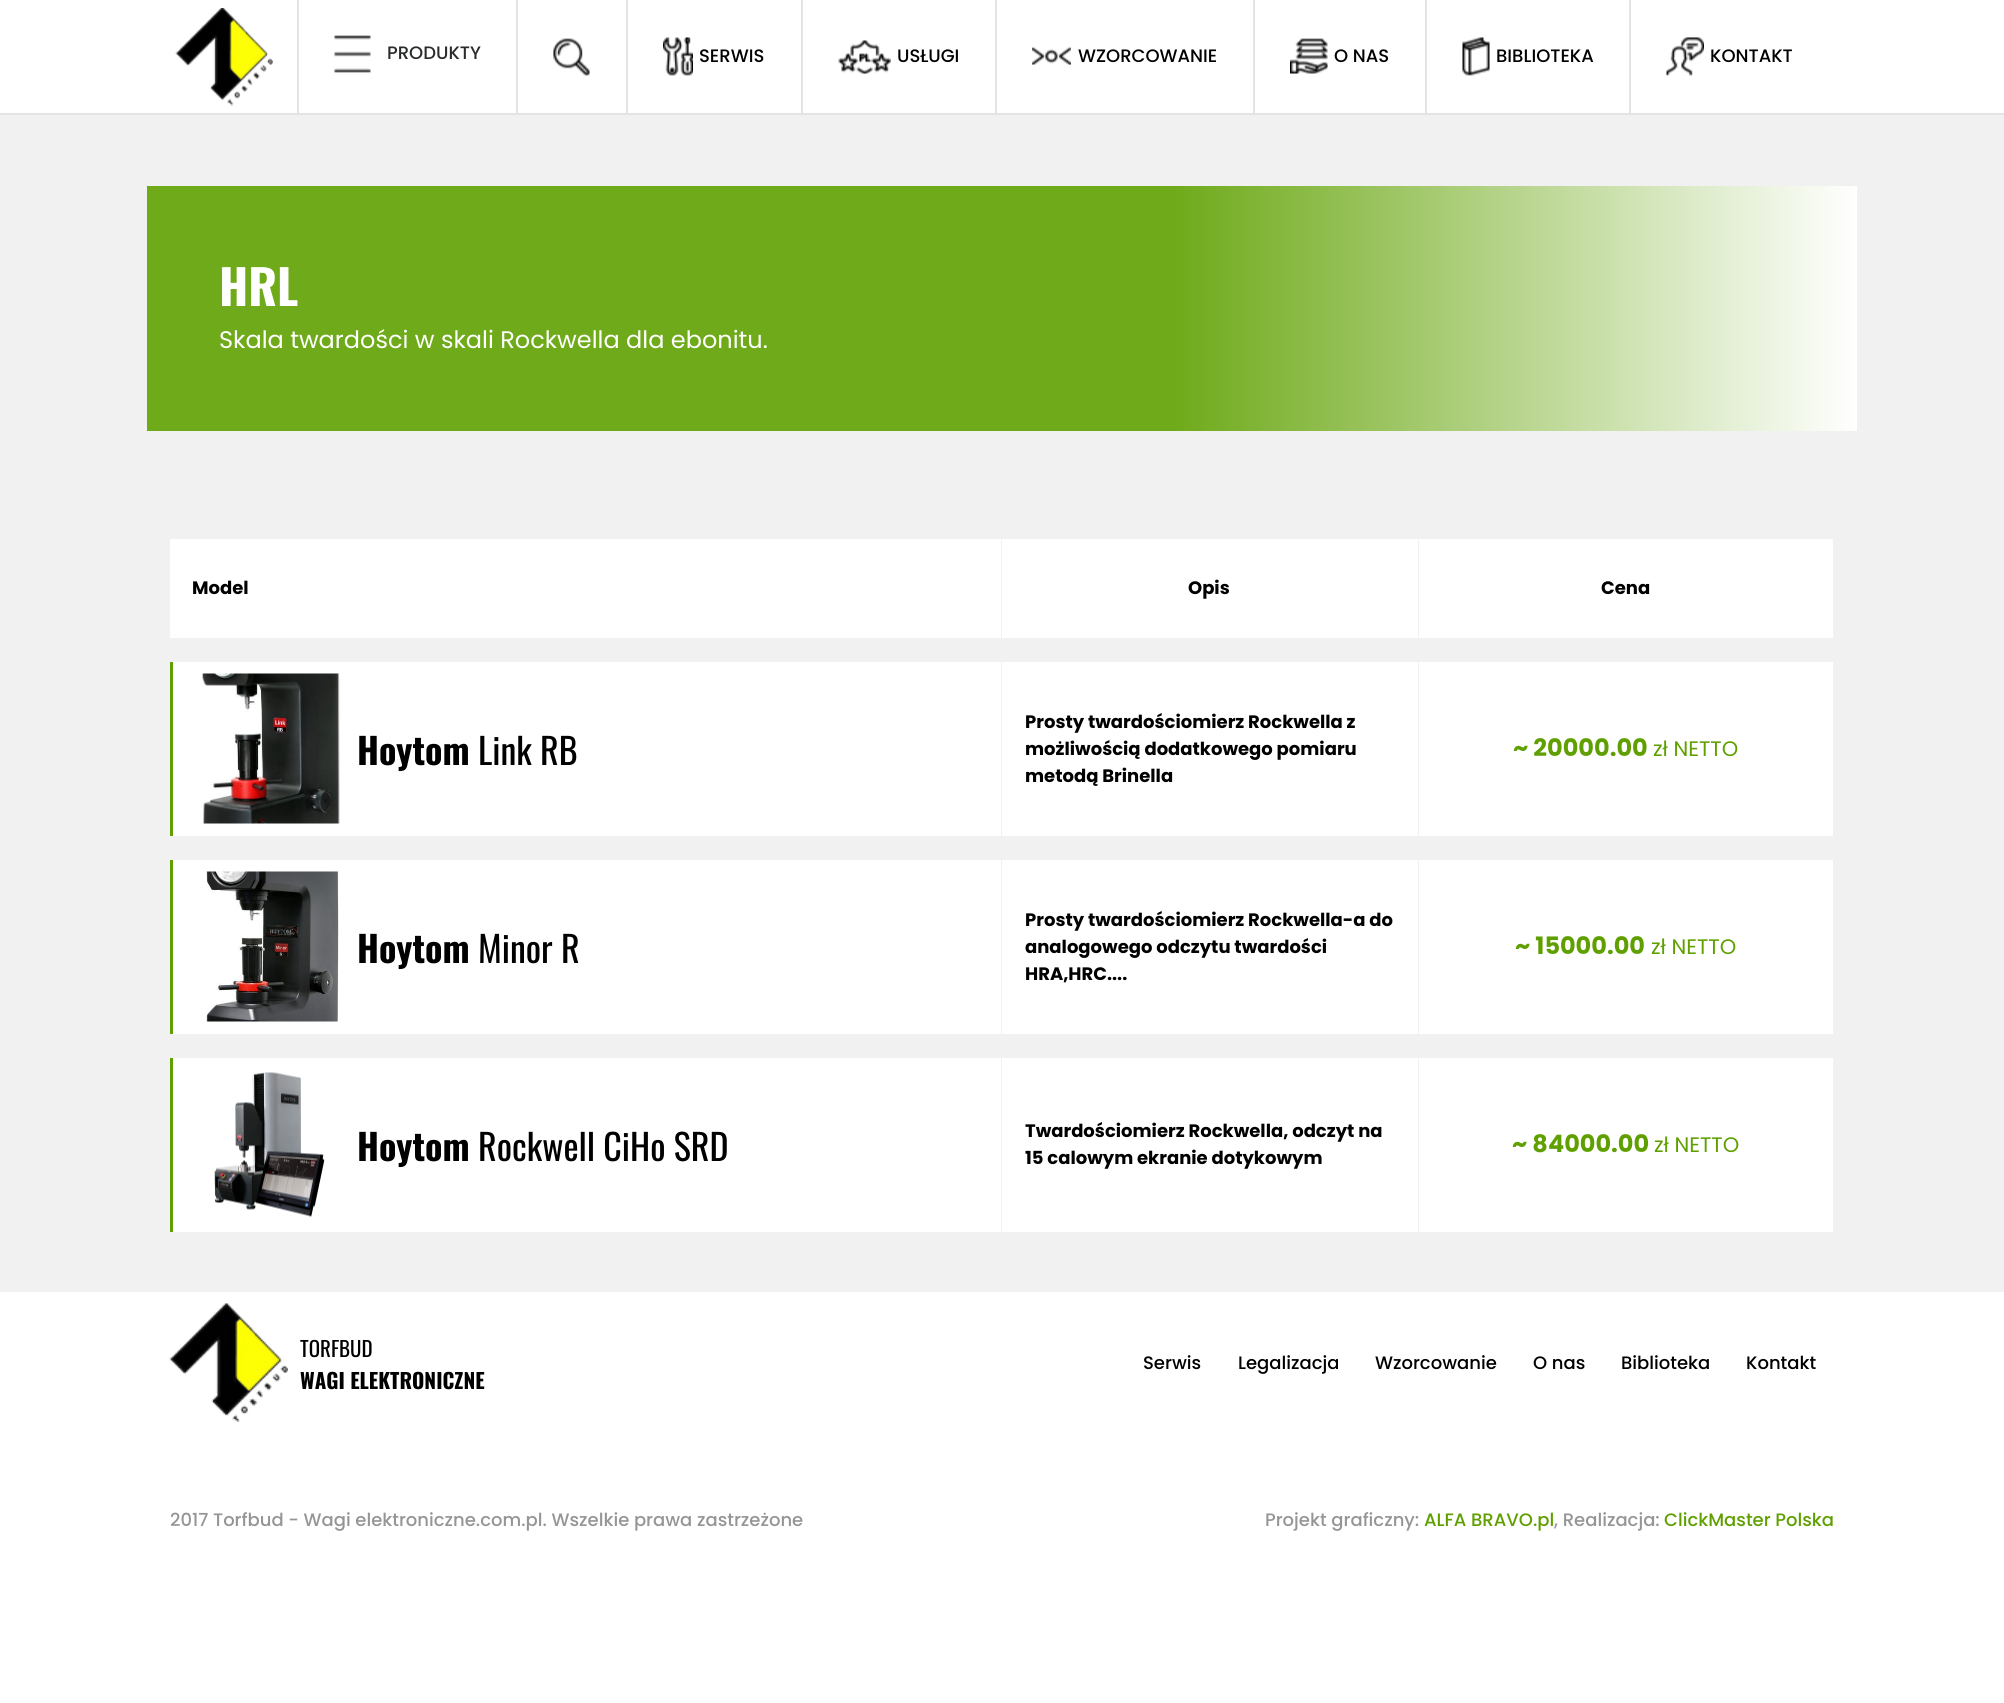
#include <cairo.h>
#include <math.h>
#include <stddef.h>


static void rgb(cairo_t *cr, int r, int g, int b)
{
	cairo_set_source_rgb(cr, r / 255.0, g / 255.0, b / 255.0);
}

static void face(cairo_t *cr, const char *family, double size, int italic, int bold)
{
	cairo_select_font_face(cr, family, italic ? CAIRO_FONT_SLANT_ITALIC : CAIRO_FONT_SLANT_NORMAL,
		bold ? CAIRO_FONT_WEIGHT_BOLD : CAIRO_FONT_WEIGHT_NORMAL);
	cairo_set_font_size(cr, size);
}

static void label(cairo_t *cr, double x, double y, const char *s)
{
	cairo_move_to(cr, x, y);
	cairo_show_text(cr, s);
}

static void rect(cairo_t *cr, double x, double y, double w, double h)
{
	cairo_rectangle(cr, x, y, w, h);
	cairo_fill(cr);
}

static void image(cairo_t *cr, const char *path, double x, double y, double w, double h)
{
	cairo_surface_t *image = cairo_image_surface_create_from_png(path);
	cairo_save(cr);
	cairo_set_source_surface(cr, image, x, y);
	cairo_rectangle(cr, x, y, w, h);
	cairo_fill(cr);
	cairo_restore(cr);
	cairo_surface_destroy(image);
}

static void draw(cairo_t *cr) {
	cairo_pattern_t *gradient;
	rgb(cr, 255, 255, 255);
	cairo_paint(cr);
	rgb(cr, 228, 228, 228);
	rect(cr, 0, 113, 2004, 2);
	image(cr, "image0.png", 175, 8, 98, 98);
	rect(cr, 297, 0, 2, 113);
	image(cr, "image1.png", 334, 35, 37, 38);
	face(cr, "Poppins Medium", 18, 0, 0);
	rgb(cr, 41, 43, 44);
	label(cr, 387, 59, "PRODUKTY");
	rgb(cr, 228, 228, 228);
	rect(cr, 516, 0, 2, 113);
	image(cr, "image2.png", 553, 38, 37, 38);
	rect(cr, 626, 0, 2, 113);
	image(cr, "image3.png", 663, 37, 30, 39);
	rgb(cr, 0, 0, 0);
	label(cr, 699, 62, "SERWIS");
	rgb(cr, 228, 228, 228);
	rect(cr, 801, 0, 2, 113);
	image(cr, "image4.png", 838, 40, 53, 34);
	rgb(cr, 0, 0, 0);
	label(cr, 897, 62, "USŁUGI");
	rgb(cr, 228, 228, 228);
	rect(cr, 995, 0, 2, 113);
	image(cr, "image5.png", 1032, 47, 39, 18);
	rgb(cr, 0, 0, 0);
	label(cr, 1078, 62, "WZORCOWANIE");
	rgb(cr, 228, 228, 228);
	rect(cr, 1253, 0, 2, 113);
	image(cr, "image6.png", 1290, 38, 38, 36);
	rgb(cr, 0, 0, 0);
	label(cr, 1334, 62, "O NAS");
	rgb(cr, 228, 228, 228);
	rect(cr, 1425, 0, 2, 113);
	image(cr, "image7.png", 1462, 37, 28, 39);
	rgb(cr, 0, 0, 0);
	label(cr, 1496, 62, "BIBLIOTEKA");
	rgb(cr, 228, 228, 228);
	rect(cr, 1629, 0, 2, 113);
	image(cr, "image8.png", 1666, 37, 38, 39);
	rgb(cr, 0, 0, 0);
	label(cr, 1710, 62, "KONTAKT");
	rgb(cr, 241, 241, 241);
	rect(cr, 0, 115, 2004, 1177);
	gradient = cairo_pattern_create_linear(147, 308, 1857, 308);
	cairo_pattern_add_color_stop_rgba(gradient, 0.6, 0.435, 0.667, 0.102, 1);
	cairo_pattern_add_color_stop_rgba(gradient, 1, 1, 1, 1, 1);
	cairo_set_source(cr, gradient);
	cairo_pattern_destroy(gradient);
	rect(cr, 147, 186, 1710, 245);
	face(cr, "Oswald", 48, 0, 1);
	rgb(cr, 255, 255, 255);
	label(cr, 219, 306, "HRL");
	face(cr, "Poppins", 24, 0, 0);
	label(cr, 219, 348, "Skala twardości w skali Rockwella dla ebonitu.");
	rect(cr, 170, 539, 831, 99);
	face(cr, "Poppins", 18, 0, 1);
	rgb(cr, 0, 0, 0);
	label(cr, 192, 594, "Model");
	rgb(cr, 255, 255, 255);
	rect(cr, 1002, 539, 416, 99);
	rgb(cr, 0, 0, 0);
	label(cr, 1188, 594, "Opis");
	rgb(cr, 255, 255, 255);
	rect(cr, 1419, 539, 414, 99);
	rgb(cr, 0, 0, 0);
	label(cr, 1601, 594, "Cena");
	rgb(cr, 255, 255, 255);
	rect(cr, 173, 662, 828, 174);
	rgb(cr, 95, 160, 0);
	rect(cr, 170, 662, 3, 174);
	image(cr, "image9.png", 202, 673, 138, 151);
	face(cr, "Oswald", 36, 0, 1);
	rgb(cr, 0, 0, 0);
	label(cr, 357, 765, "Hoytom");
	face(cr, "Oswald", 36, 0, 0);
	label(cr, 478, 765, "Link RB");
	rgb(cr, 255, 255, 255);
	rect(cr, 1002, 662, 416, 174);
	face(cr, "Poppins", 18, 0, 1);
	rgb(cr, 0, 0, 0);
	label(cr, 1025, 728, "Prosty twardościomierz Rockwella z");
	label(cr, 1025, 755, "możliwością dodatkowego pomiaru");
	label(cr, 1025, 782, "metodą Brinella");
	rgb(cr, 255, 255, 255);
	rect(cr, 1419, 662, 414, 174);
	face(cr, "Poppins", 24, 0, 1);
	rgb(cr, 95, 160, 0);
	label(cr, 1513, 756, "~ 20000.00");
	face(cr, "Poppins", 21, 0, 0);
	label(cr, 1653, 756, "zł NETTO");
	rgb(cr, 255, 255, 255);
	rect(cr, 173, 860, 828, 174);
	rgb(cr, 95, 160, 0);
	rect(cr, 170, 860, 3, 174);
	image(cr, "image10.png", 206, 871, 133, 151);
	face(cr, "Oswald", 36, 0, 1);
	rgb(cr, 0, 0, 0);
	label(cr, 357, 963, "Hoytom");
	face(cr, "Oswald", 36, 0, 0);
	label(cr, 478, 963, "Minor R");
	rgb(cr, 255, 255, 255);
	rect(cr, 1002, 860, 416, 174);
	face(cr, "Poppins", 18, 0, 1);
	rgb(cr, 0, 0, 0);
	label(cr, 1025, 926, "Prosty twardościomierz Rockwella-a do");
	label(cr, 1025, 953, "analogowego odczytu twardości");
	label(cr, 1025, 980, "HRA,HRC....");
	rgb(cr, 255, 255, 255);
	rect(cr, 1419, 860, 414, 174);
	face(cr, "Poppins", 24, 0, 1);
	rgb(cr, 95, 160, 0);
	label(cr, 1515, 954, "~ 15000.00");
	face(cr, "Poppins", 21, 0, 0);
	label(cr, 1651, 954, "zł NETTO");
	rgb(cr, 255, 255, 255);
	rect(cr, 173, 1058, 828, 174);
	rgb(cr, 95, 160, 0);
	rect(cr, 170, 1058, 3, 174);
	image(cr, "image11.png", 214, 1072, 111, 145);
	face(cr, "Oswald", 36, 0, 1);
	rgb(cr, 0, 0, 0);
	label(cr, 357, 1161, "Hoytom");
	face(cr, "Oswald", 36, 0, 0);
	label(cr, 478, 1161, "Rockwell CiHo SRD");
	rgb(cr, 255, 255, 255);
	rect(cr, 1002, 1058, 416, 174);
	face(cr, "Poppins", 18, 0, 1);
	rgb(cr, 0, 0, 0);
	label(cr, 1025, 1137, "Twardościomierz Rockwella, odczyt na");
	label(cr, 1025, 1164, "15 calowym ekranie dotykowym");
	rgb(cr, 255, 255, 255);
	rect(cr, 1419, 1058, 414, 174);
	face(cr, "Poppins", 24, 0, 1);
	rgb(cr, 95, 160, 0);
	label(cr, 1512, 1152, "~ 84000.00");
	face(cr, "Poppins", 21, 0, 0);
	label(cr, 1654, 1152, "zł NETTO");
	image(cr, "image12.png", 169, 1303, 119, 119);
	face(cr, "Oswald", 21, 0, 0);
	rgb(cr, 0, 0, 0);
	label(cr, 300, 1357, "TORFBUD");
	face(cr, "Oswald", 21, 0, 1);
	label(cr, 300, 1389, "WAGI ELEKTRONICZNE");
	face(cr, "Poppins Medium", 18, 0, 0);
	label(cr, 1143, 1369, "Serwis");
	label(cr, 1238, 1369, "Legalizacja");
	label(cr, 1375, 1369, "Wzorcowanie");
	label(cr, 1533, 1369, "O nas");
	label(cr, 1621, 1369, "Biblioteka");
	label(cr, 1746, 1369, "Kontakt");
	rgb(cr, 149, 149, 149);
	label(cr, 170, 1526, "2017 Torfbud - Wagi elektroniczne.com.pl. Wszelkie prawa zastrzeżone");
	label(cr, 1265, 1526, "Projekt graficzny:");
	rgb(cr, 95, 160, 0);
	label(cr, 1424, 1526, "ALFA BRAVO.pl");
	rgb(cr, 149, 149, 149);
	label(cr, 1554, 1526, ", Realizacja:");
	rgb(cr, 95, 160, 0);
	label(cr, 1664, 1526, "ClickMaster Polska");
}

int main(void) {
	cairo_surface_t *surface = cairo_image_surface_create(CAIRO_FORMAT_RGB24, 2004, 1703);
	cairo_t *cr = cairo_create(surface);
	cairo_font_options_t *options = cairo_font_options_create();
	cairo_font_options_set_hint_metrics(options, CAIRO_HINT_METRICS_OFF);
	cairo_font_options_set_hint_style(options, CAIRO_HINT_STYLE_NONE);
	cairo_set_font_options(cr, options);
	cairo_set_miter_limit(cr, 4);
	draw(cr);
	cairo_surface_write_to_png(surface, "render.png");
	cairo_font_options_destroy(options);
	cairo_destroy(cr);
	cairo_surface_destroy(surface);
	return 0;
}
